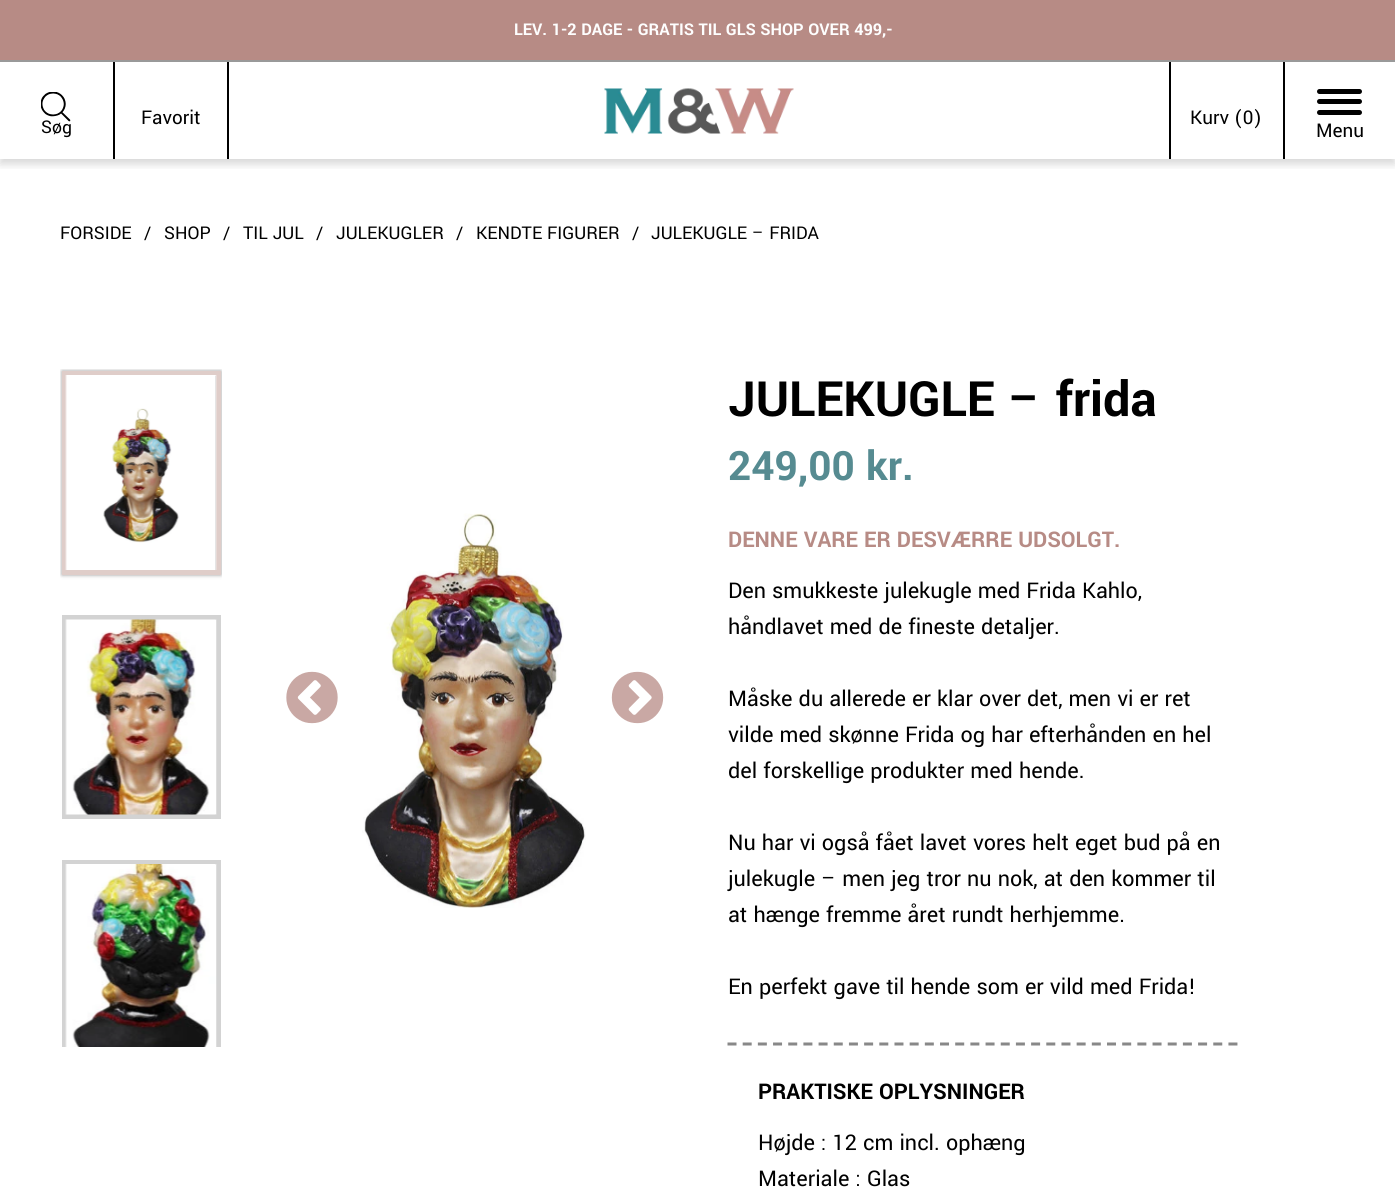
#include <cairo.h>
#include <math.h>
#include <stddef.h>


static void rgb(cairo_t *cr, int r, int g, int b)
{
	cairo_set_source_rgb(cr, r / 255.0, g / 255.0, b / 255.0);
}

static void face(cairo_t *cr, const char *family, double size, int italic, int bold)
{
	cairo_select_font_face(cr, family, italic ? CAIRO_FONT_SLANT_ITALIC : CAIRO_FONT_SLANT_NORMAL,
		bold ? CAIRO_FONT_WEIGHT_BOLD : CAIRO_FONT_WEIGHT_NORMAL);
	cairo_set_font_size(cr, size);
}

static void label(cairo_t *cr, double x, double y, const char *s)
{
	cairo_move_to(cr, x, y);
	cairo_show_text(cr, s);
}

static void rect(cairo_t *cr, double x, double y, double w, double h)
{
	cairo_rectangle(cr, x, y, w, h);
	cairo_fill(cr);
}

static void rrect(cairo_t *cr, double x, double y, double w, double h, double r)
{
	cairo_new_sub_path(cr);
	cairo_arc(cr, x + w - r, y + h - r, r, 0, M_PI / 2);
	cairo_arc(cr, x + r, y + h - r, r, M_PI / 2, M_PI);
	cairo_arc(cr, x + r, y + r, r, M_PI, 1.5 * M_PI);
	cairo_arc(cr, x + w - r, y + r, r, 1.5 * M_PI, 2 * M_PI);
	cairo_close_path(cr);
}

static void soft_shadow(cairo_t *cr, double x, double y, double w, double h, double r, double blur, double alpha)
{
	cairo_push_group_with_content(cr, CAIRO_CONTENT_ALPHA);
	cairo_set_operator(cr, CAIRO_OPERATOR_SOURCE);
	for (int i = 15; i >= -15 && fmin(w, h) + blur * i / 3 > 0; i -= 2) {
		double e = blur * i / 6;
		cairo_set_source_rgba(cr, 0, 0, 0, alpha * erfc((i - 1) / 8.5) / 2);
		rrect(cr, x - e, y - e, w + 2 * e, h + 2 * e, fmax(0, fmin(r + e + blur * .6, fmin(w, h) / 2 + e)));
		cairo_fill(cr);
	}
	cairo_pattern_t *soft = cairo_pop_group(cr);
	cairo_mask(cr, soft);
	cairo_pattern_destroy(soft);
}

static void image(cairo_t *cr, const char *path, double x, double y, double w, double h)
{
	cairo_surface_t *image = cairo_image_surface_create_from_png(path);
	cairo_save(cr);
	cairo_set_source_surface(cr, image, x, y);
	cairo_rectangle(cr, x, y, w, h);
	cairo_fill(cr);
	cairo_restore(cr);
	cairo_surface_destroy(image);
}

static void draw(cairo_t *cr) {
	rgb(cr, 255, 255, 255);
	cairo_paint(cr);
	rgb(cr, 183, 139, 133);
	rect(cr, 0, 0, 1395, 60);
	face(cr, "Yantramanav", 18, 0, 1);
	rgb(cr, 254, 254, 254);
	label(cr, 514, 35, "LEV. 1-2 DAGE - GRATIS TIL GLS SHOP OVER 499,-");
	cairo_save(cr);
	cairo_rectangle(cr, 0, 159, 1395, 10);
	cairo_clip(cr);
	rgb(cr, 0, 0, 0);
	soft_shadow(cr, 0, 65, 1395, 99, 0, 4.5, 0.16);
	cairo_restore(cr);
	rgb(cr, 153, 153, 153);
	rect(cr, 0, 60, 1395, 2);
	rgb(cr, 0, 0, 0);
	rect(cr, 227, 62, 2, 97);
	face(cr, "Yantramanav", 21, 0, 0);
	label(cr, 141, 124, "Favorit");
	image(cr, "image0.png", 604, 88, 190, 46);
	rect(cr, 1169, 62, 2, 97);
	label(cr, 1190, 124, "Kurv (0)");
	rect(cr, 113, 62, 2, 97);
	face(cr, "Yantramanav", 19.5, 0, 0);
	label(cr, 41, 133, "Søg");
	image(cr, "image1.png", 41, 92, 30, 30);
	rect(cr, 1283, 62, 2, 97);
	rrect(cr, 1317, 99, 45, 5, 2.5);
	cairo_fill(cr);
	rrect(cr, 1317, 89, 45, 5, 2.5);
	cairo_fill(cr);
	rrect(cr, 1317, 110, 45, 5, 2.5);
	cairo_fill(cr);
	face(cr, "Yantramanav", 21, 0, 0);
	label(cr, 1316, 137, "Menu");
	face(cr, "Yantramanav", 19.5, 0, 0);
	label(cr, 60, 239, "FORSIDE");
	label(cr, 144, 239, "/");
	label(cr, 164, 239, "SHOP");
	label(cr, 223, 239, "/");
	label(cr, 243, 239, "TIL JUL");
	label(cr, 316, 239, "/");
	label(cr, 336, 239, "JULEKUGLER");
	label(cr, 456, 239, "/");
	label(cr, 476, 239, "KENDTE FIGURER");
	label(cr, 632, 239, "/");
	label(cr, 651, 239, "JULEKUGLE – FRIDA");
	cairo_save(cr);
	cairo_rectangle(cr, 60, 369, 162, 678);
	cairo_clip(cr);
	rgb(cr, 0, 0, 0);
	soft_shadow(cr, 62, 371, 159, 204, 0, 2, 0.4);
	cairo_restore(cr);
	cairo_rectangle(cr, 64.5, 373.5, 154, 199);
	rgb(cr, 223, 205, 201);
	cairo_set_line_width(cr, 5);
	cairo_stroke(cr);
	image(cr, "image2.png", 65, 375, 152, 195);
	cairo_rectangle(cr, 64.5, 617.5, 154, 199);
	rgb(cr, 211, 211, 211);
	cairo_stroke(cr);
	image(cr, "image3.png", 65, 619, 152, 196);
	cairo_save(cr);
	cairo_rectangle(cr, 60, 369, 162, 678);
	cairo_clip(cr);
	cairo_rectangle(cr, 64.5, 862.5, 154, 199);
	cairo_stroke(cr);
	cairo_restore(cr);
	image(cr, "image4.png", 65, 864, 152, 183);
	image(cr, "image5.png", 286, 671, 52, 53);
	image(cr, "image6.png", 362, 513, 224, 395);
	image(cr, "image7.png", 611, 671, 53, 53);
	face(cr, "Yantramanav", 54, 0, 1);
	rgb(cr, 0, 0, 0);
	label(cr, 728, 416, "JULEKUGLE – frida");
	face(cr, "Yantramanav", 45, 0, 1);
	rgb(cr, 86, 139, 145);
	label(cr, 728, 480, "249,00 kr.");
	face(cr, "Yantramanav", 24, 0, 1);
	rgb(cr, 183, 139, 133);
	label(cr, 728, 547, "DENNE VARE ER DESVÆRRE UDSOLGT.");
	face(cr, "Yantramanav", 24, 0, 0);
	rgb(cr, 0, 0, 0);
	label(cr, 728, 598, "Den smukkeste julekugle med Frida Kahlo,");
	label(cr, 728, 634, "håndlavet med de fineste detaljer.");
	label(cr, 728, 706, "Måske du allerede er klar over det, men vi er ret");
	label(cr, 728, 742, "vilde med skønne Frida og har efterhånden en hel");
	label(cr, 728, 778, "del forskellige produkter med hende.");
	label(cr, 728, 850, "Nu har vi også fået lavet vores helt eget bud på en");
	label(cr, 728, 886, "julekugle – men jeg tror nu nok, at den kommer til");
	label(cr, 728, 922, "at hænge fremme året rundt herhjemme.");
	label(cr, 728, 994, "En perfekt gave til hende som er vild med Frida!");
	cairo_new_path(cr);
	cairo_move_to(cr, 727.5, 1044);
	cairo_line_to(cr, 1237.5, 1044);
	rgb(cr, 136, 136, 136);
	cairo_set_line_width(cr, 3);
	cairo_set_dash(cr, (double[]){9, 6.18}, 2, 0);
	cairo_stroke(cr);
	face(cr, "Yantramanav", 24, 0, 1);
	rgb(cr, 0, 0, 0);
	label(cr, 758, 1099, "PRAKTISKE OPLYSNINGER");
	face(cr, "Yantramanav", 24, 0, 0);
	label(cr, 758, 1150, "Højde : 12 cm incl. ophæng");
	label(cr, 758, 1186, "Materiale : Glas");
}

int main(void) {
	cairo_surface_t *surface = cairo_image_surface_create(CAIRO_FORMAT_RGB24, 1395, 1202);
	cairo_t *cr = cairo_create(surface);
	cairo_font_options_t *options = cairo_font_options_create();
	cairo_font_options_set_hint_metrics(options, CAIRO_HINT_METRICS_OFF);
	cairo_font_options_set_hint_style(options, CAIRO_HINT_STYLE_NONE);
	cairo_set_font_options(cr, options);
	cairo_set_miter_limit(cr, 4);
	draw(cr);
	cairo_surface_write_to_png(surface, "render.png");
	cairo_font_options_destroy(options);
	cairo_destroy(cr);
	cairo_surface_destroy(surface);
	return 0;
}
